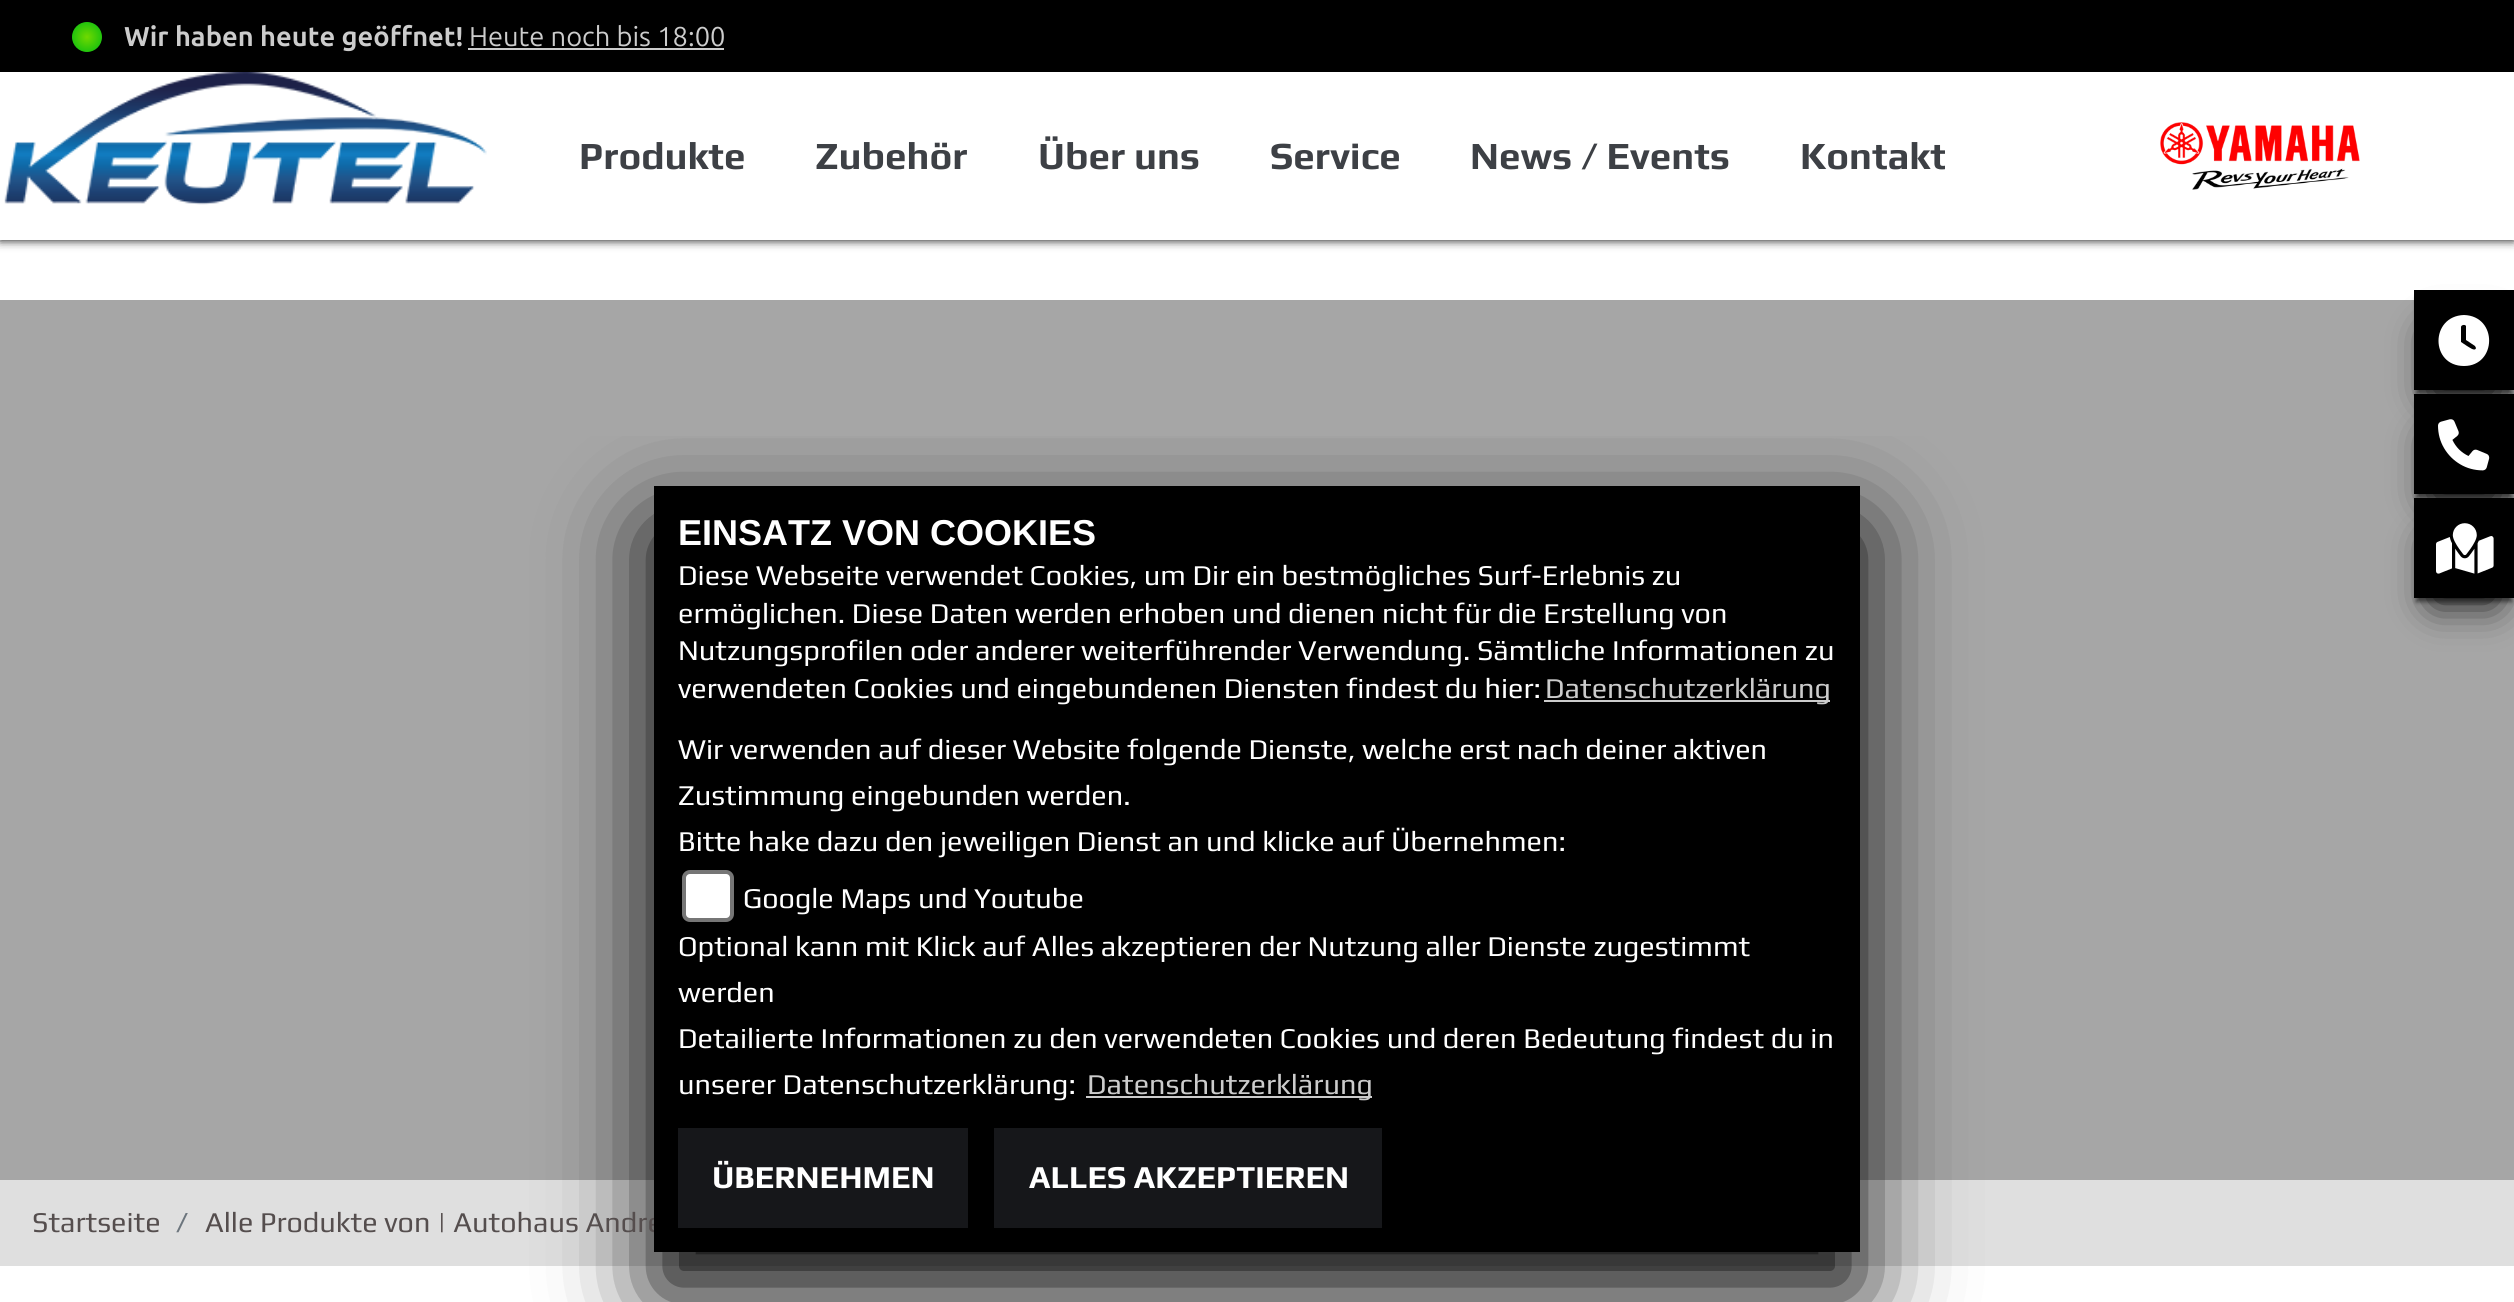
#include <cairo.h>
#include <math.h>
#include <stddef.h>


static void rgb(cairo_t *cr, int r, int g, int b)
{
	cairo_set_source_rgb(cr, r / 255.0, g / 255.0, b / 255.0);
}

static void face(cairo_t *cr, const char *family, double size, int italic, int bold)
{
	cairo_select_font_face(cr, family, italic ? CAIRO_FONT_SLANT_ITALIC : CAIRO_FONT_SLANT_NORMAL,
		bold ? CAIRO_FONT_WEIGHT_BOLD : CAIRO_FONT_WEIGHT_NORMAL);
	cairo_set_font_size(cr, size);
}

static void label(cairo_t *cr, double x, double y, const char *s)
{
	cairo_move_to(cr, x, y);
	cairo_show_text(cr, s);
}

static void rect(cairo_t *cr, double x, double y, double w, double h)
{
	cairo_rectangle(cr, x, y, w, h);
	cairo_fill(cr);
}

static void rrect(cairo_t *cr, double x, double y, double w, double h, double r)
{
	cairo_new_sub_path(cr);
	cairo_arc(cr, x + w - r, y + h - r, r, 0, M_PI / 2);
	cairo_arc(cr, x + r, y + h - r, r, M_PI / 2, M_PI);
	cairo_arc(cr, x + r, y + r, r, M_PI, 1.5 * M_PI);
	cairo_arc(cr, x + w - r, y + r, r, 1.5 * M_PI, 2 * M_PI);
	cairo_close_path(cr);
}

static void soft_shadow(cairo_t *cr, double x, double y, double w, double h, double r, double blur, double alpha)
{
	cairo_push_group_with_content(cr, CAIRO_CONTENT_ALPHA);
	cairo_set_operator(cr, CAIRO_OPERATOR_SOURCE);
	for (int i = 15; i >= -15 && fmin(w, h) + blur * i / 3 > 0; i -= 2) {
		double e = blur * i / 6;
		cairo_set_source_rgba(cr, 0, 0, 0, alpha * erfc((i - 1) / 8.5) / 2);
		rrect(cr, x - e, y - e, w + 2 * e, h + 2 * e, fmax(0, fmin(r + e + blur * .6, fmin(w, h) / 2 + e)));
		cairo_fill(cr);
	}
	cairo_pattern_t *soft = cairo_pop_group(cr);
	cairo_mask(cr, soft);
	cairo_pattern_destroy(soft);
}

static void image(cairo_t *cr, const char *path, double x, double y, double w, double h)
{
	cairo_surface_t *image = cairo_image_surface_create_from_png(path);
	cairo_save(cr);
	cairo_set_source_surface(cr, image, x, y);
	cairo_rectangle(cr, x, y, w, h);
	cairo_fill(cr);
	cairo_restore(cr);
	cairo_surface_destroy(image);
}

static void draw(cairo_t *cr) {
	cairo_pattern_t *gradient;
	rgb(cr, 255, 255, 255);
	cairo_paint(cr);
	rgb(cr, 0, 0, 0);
	soft_shadow(cr, 0, 0, 2514, 240, 0, 5, 1);
	rgb(cr, 0, 0, 0);
	rect(cr, 0, 0, 2514, 72);
	gradient = cairo_pattern_create_radial(87, 37, 0, 87, 37, 21);
	cairo_pattern_add_color_stop_rgba(gradient, 0, 0.443, 0.851, 0, 1);
	cairo_pattern_add_color_stop_rgba(gradient, 1, 0, 0.733, 0.071, 1);
	cairo_set_source(cr, gradient);
	cairo_pattern_destroy(gradient);
	cairo_arc(cr, 87, 37, 15, 0, 2 * M_PI);
	cairo_fill(cr);
	face(cr, "Ubuntu", 27.25, 0, 1);
	rgb(cr, 204, 204, 204);
	label(cr, 124, 46, "Wir haben heute geöffnet!");
	face(cr, "Ubuntu", 27.25, 0, 0);
	label(cr, 469, 46, "Heute noch bis 18:00");
	rect(cr, 468, 48, 256, 2);
	rgb(cr, 255, 255, 255);
	rect(cr, 0, 72, 2514, 168);
	image(cr, "image0.png", 4, 72, 483, 133);
	face(cr, "Play", 38.5, 0, 1);
	rgb(cr, 61, 64, 69);
	label(cr, 579, 169, "Produkte");
	label(cr, 815, 169, "Zubehör");
	label(cr, 1038, 169, "Über uns");
	label(cr, 1270, 169, "Service");
	label(cr, 1470, 169, "News / Events");
	label(cr, 1800, 169, "Kontakt");
	image(cr, "image1.png", 2160, 122, 200, 68);
	rgb(cr, 166, 166, 166);
	rect(cr, 0, 300, 2514, 880);
	rgb(cr, 0, 0, 0);
	soft_shadow(cr, 2434, 334, 60, 60, 0, 20, 1);
	soft_shadow(cr, 2416, 298, 96, 96, 0, 2, 0.5);
	rgb(cr, 0, 0, 0);
	rect(cr, 2414, 290, 100, 100);
	rgb(cr, 255, 255, 255);
	cairo_new_path(cr);
	cairo_move_to(cr, 2464, 315);
	cairo_curve_to(cr, 2498, 316, 2497, 366, 2464, 366);
	cairo_curve_to(cr, 2430, 366, 2430, 316, 2464, 315);
	cairo_close_path(cr);
	cairo_move_to(cr, 2461, 327);
	cairo_line_to(cr, 2461, 342);
	cairo_line_to(cr, 2467, 346);
	cairo_curve_to(cr, 2469, 347, 2475, 352, 2476, 348);
	cairo_line_to(cr, 2475, 346);
	cairo_line_to(cr, 2466, 340);
	cairo_line_to(cr, 2466, 326);
	cairo_curve_to(cr, 2465, 324, 2461, 325, 2461, 327);
	cairo_close_path(cr);
	cairo_fill(cr);
	rgb(cr, 0, 0, 0);
	soft_shadow(cr, 2434, 438, 60, 60, 0, 20, 1);
	soft_shadow(cr, 2416, 402, 96, 96, 0, 2, 0.5);
	rgb(cr, 0, 0, 0);
	rect(cr, 2414, 394, 100, 100);
	image(cr, "image2.png", 2438, 419, 52, 52);
	rgb(cr, 0, 0, 0);
	soft_shadow(cr, 2434, 542, 60, 60, 0, 20, 1);
	soft_shadow(cr, 2416, 506, 96, 96, 0, 2, 0.5);
	rgb(cr, 0, 0, 0);
	rect(cr, 2414, 498, 100, 100);
	image(cr, "image3.png", 2436, 523, 58, 51);
	rgb(cr, 223, 223, 223);
	rect(cr, 0, 1180, 2514, 86);
	cairo_save(cr);
	cairo_rectangle(cr, 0, 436, 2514, 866);
	cairo_clip(cr);
	rgb(cr, 0, 0, 0);
	soft_shadow(cr, 654, 530, 1206, 766, 0, 50, 1);
	cairo_restore(cr);
	face(cr, "Play", 28.8, 0, 0);
	rgb(cr, 85, 78, 78);
	label(cr, 205, 1232, "Alle Produkte von | Autohaus Andre");
	rgb(cr, 0, 0, 0);
	rect(cr, 654, 486, 1206, 766);
	face(cr, "Liberation Sans", 36, 0, 1);
	rgb(cr, 255, 255, 255);
	label(cr, 678, 545, "EINSATZ VON COOKIES");
	face(cr, "Play", 28.8, 0, 0);
	label(cr, 678, 585, "Diese Webseite verwendet Cookies, um Dir ein bestmögliches Surf-Erlebnis zu");
	label(cr, 678, 623, "ermöglichen. Diese Daten werden erhoben und dienen nicht für die Erstellung von");
	label(cr, 678, 660, "Nutzungsprofilen oder anderer weiterführender Verwendung. Sämtliche Informationen zu");
	label(cr, 678, 698, "verwendeten Cookies und eingebundenen Diensten findest du hier:");
	rgb(cr, 204, 204, 204);
	rect(cr, 1544, 700, 286, 2);
	label(cr, 1545, 698, "Datenschutzerklärung");
	rgb(cr, 255, 255, 255);
	label(cr, 678, 759, "Wir verwenden auf dieser Website folgende Dienste, welche erst nach deiner aktiven");
	label(cr, 678, 805, "Zustimmung eingebunden werden.");
	label(cr, 678, 851, "Bitte hake dazu den jeweiligen Dienst an und klicke auf Übernehmen:");
	rrect(cr, 684, 872, 48, 48, 6);
	cairo_fill_preserve(cr);
	rgb(cr, 118, 118, 118);
	cairo_set_line_width(cr, 4);
	cairo_stroke(cr);
	rgb(cr, 255, 255, 255);
	label(cr, 743, 908, "Google Maps und Youtube");
	label(cr, 678, 956, "Optional kann mit Klick auf Alles akzeptieren der Nutzung aller Dienste zugestimmt");
	label(cr, 678, 1002, "werden");
	label(cr, 678, 1048, "Detailierte Informationen zu den verwendeten Cookies und deren Bedeutung findest du in");
	label(cr, 678, 1094, "unserer Datenschutzerklärung:");
	rgb(cr, 204, 204, 204);
	rect(cr, 1086, 1096, 286, 2);
	label(cr, 1087, 1094, "Datenschutzerklärung");
	rgb(cr, 22, 23, 26);
	rect(cr, 678, 1128, 290, 100);
	face(cr, "Play", 32, 0, 1);
	rgb(cr, 255, 255, 255);
	label(cr, 712, 1188, "ÜBERNEHMEN");
	rgb(cr, 22, 23, 26);
	rect(cr, 994, 1128, 388, 100);
	rgb(cr, 255, 255, 255);
	label(cr, 1029, 1188, "ALLES AKZEPTIEREN");
	face(cr, "Play", 28.8, 0, 0);
	rgb(cr, 85, 78, 78);
	label(cr, 32, 1232, "Startseite");
	rgb(cr, 108, 117, 125);
	label(cr, 176, 1232, "/");
}

int main(void) {
	cairo_surface_t *surface = cairo_image_surface_create(CAIRO_FORMAT_RGB24, 2514, 1302);
	cairo_t *cr = cairo_create(surface);
	cairo_font_options_t *options = cairo_font_options_create();
	cairo_font_options_set_hint_metrics(options, CAIRO_HINT_METRICS_OFF);
	cairo_font_options_set_hint_style(options, CAIRO_HINT_STYLE_NONE);
	cairo_set_font_options(cr, options);
	cairo_set_miter_limit(cr, 4);
	draw(cr);
	cairo_surface_write_to_png(surface, "render.png");
	cairo_font_options_destroy(options);
	cairo_destroy(cr);
	cairo_surface_destroy(surface);
	return 0;
}
